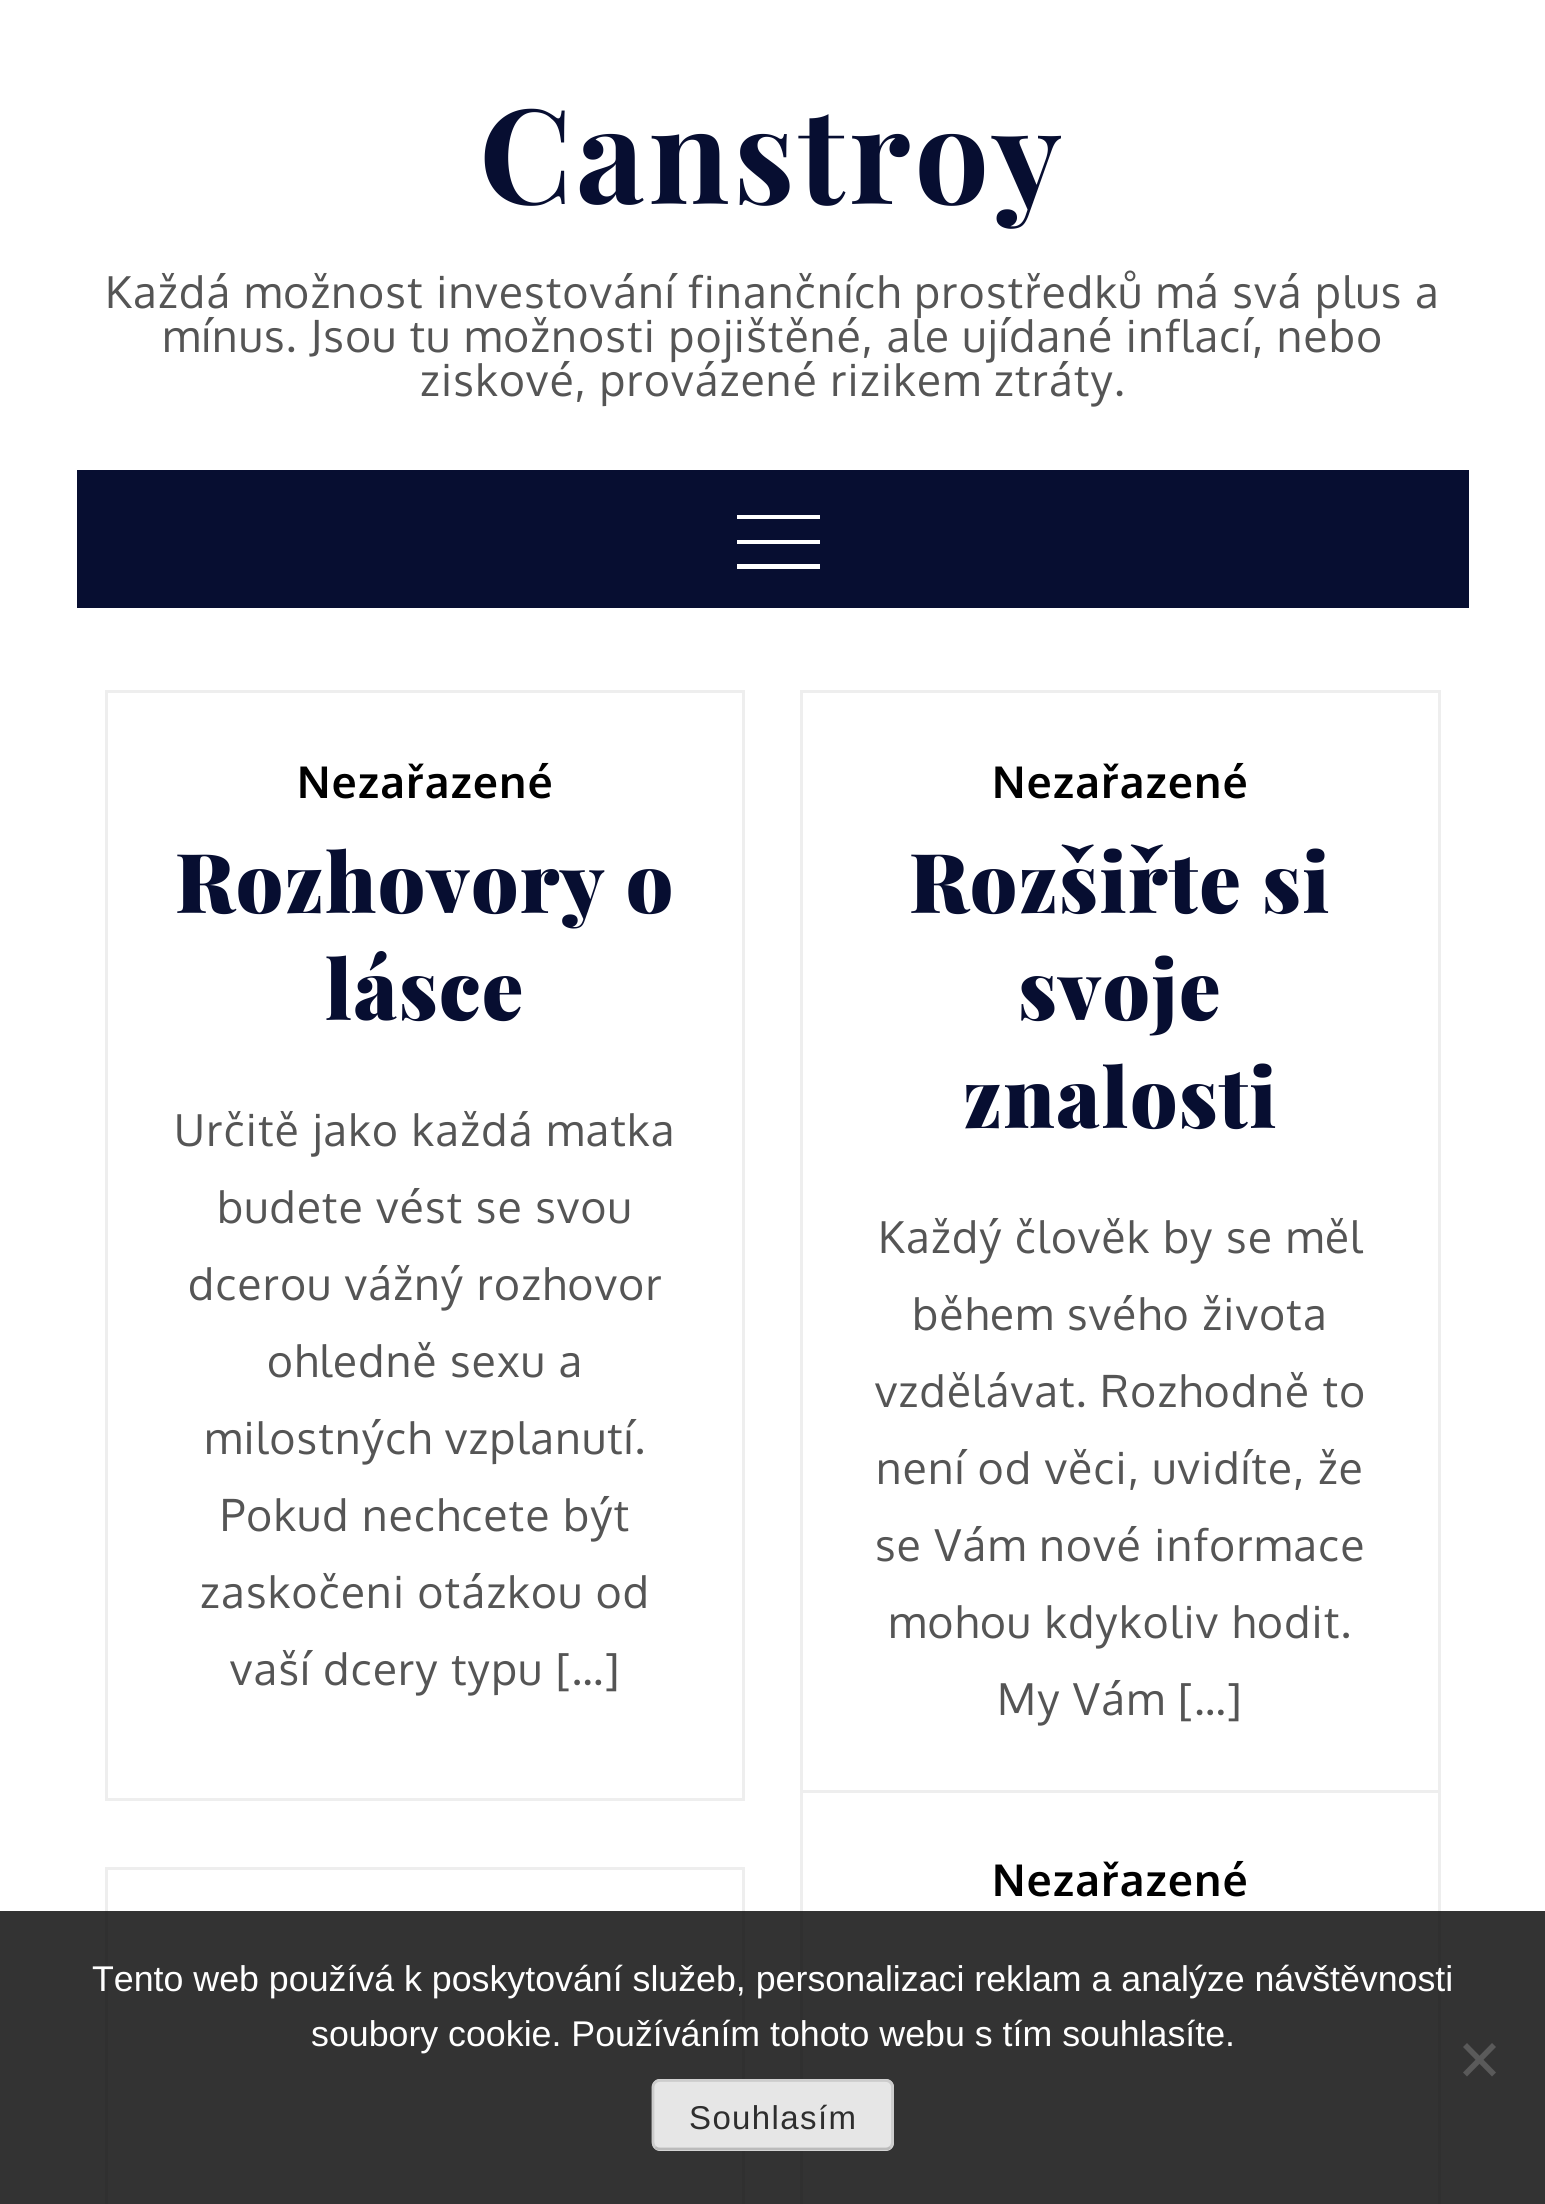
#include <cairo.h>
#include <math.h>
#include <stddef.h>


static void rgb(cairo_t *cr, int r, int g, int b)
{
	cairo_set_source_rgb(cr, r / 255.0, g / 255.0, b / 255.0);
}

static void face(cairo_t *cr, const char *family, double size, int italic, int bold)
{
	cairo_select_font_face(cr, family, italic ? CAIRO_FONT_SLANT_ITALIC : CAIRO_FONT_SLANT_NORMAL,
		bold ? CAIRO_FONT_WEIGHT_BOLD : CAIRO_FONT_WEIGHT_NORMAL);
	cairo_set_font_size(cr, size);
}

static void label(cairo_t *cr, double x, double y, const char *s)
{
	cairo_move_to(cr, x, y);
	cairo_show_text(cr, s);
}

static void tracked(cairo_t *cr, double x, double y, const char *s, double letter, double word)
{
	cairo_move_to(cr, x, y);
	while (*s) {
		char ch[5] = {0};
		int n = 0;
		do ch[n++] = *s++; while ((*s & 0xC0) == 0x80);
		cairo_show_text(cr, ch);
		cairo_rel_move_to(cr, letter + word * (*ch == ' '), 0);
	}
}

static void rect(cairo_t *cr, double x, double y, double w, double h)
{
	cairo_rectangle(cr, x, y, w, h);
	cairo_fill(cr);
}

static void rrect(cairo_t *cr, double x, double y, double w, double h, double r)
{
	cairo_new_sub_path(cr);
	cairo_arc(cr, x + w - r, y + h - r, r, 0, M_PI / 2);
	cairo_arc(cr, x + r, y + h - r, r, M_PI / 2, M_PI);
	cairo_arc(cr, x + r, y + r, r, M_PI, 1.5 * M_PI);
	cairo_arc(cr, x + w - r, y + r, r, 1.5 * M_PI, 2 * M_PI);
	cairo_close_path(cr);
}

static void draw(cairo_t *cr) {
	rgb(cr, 255, 255, 255);
	cairo_paint(cr);
	face(cr, "Playfair Display", 132, 0, 1);
	rgb(cr, 7, 14, 49);
	tracked(cr, 479, 204, "Canstroy", 4, 0);
	face(cr, "Oxygen", 44, 0, 0);
	rgb(cr, 85, 85, 85);
	tracked(cr, 105, 308, "Každá možnost investování finančních prostředků má svá plus a", 1.38, 0);
	tracked(cr, 162, 352, "mínus. Jsou tu možnosti pojištěné, ale ujídané inflací, nebo", 1.38, 0);
	tracked(cr, 420, 396, "ziskové, provázené rizikem ztráty.", 1.38, 0);
	rgb(cr, 7, 14, 49);
	rect(cr, 77, 470, 1392, 138);
	rgb(cr, 255, 255, 255);
	rect(cr, 737, 515, 83, 4);
	rect(cr, 737, 540, 83, 4);
	rect(cr, 737, 564, 83, 5);
	cairo_rectangle(cr, 106.5, 691.5, 637, 1108);
	rgb(cr, 238, 238, 238);
	cairo_set_line_width(cr, 3);
	cairo_stroke(cr);
	face(cr, "Oxygen", 44, 0, 1);
	rgb(cr, 0, 0, 0);
	tracked(cr, 297, 798, "Nezařazené", 1.38, 0);
	face(cr, "Playfair Display Black", 82.5, 0, 0);
	rgb(cr, 7, 14, 49);
	tracked(cr, 175, 913, "Rozhovory o", 1.38, 0);
	tracked(cr, 325, 1020, "lásce", 1.38, 0);
	face(cr, "Oxygen", 44, 0, 0);
	rgb(cr, 85, 85, 85);
	tracked(cr, 174, 1146, "Určitě jako každá matka", 1.38, 0);
	tracked(cr, 217, 1223, "budete vést se svou", 1.38, 0);
	tracked(cr, 188, 1300, "dcerou vážný rozhovor", 1.38, 0);
	tracked(cr, 267, 1377, "ohledně sexu a", 1.38, 0);
	tracked(cr, 204, 1454, "milostných vzplanutí.", 1.38, 0);
	tracked(cr, 220, 1531, "Pokud nechcete být", 1.38, 0);
	tracked(cr, 200, 1608, "zaskočeni otázkou od", 1.38, 0);
	tracked(cr, 230, 1685, "vaší dcery typu […]", 1.38, 0);
	cairo_rectangle(cr, 801.5, 691.5, 638, 1139);
	rgb(cr, 238, 238, 238);
	cairo_stroke(cr);
	face(cr, "Oxygen", 44, 0, 1);
	rgb(cr, 0, 0, 0);
	tracked(cr, 992, 798, "Nezařazené", 1.38, 0);
	face(cr, "Playfair Display Black", 82.5, 0, 0);
	rgb(cr, 7, 14, 49);
	tracked(cr, 909, 913, "Rozšiřte si", 1.38, 0);
	tracked(cr, 1018, 1020, "svoje", 1.38, 0);
	tracked(cr, 963, 1128, "znalosti", 1.38, 0);
	face(cr, "Oxygen", 44, 0, 0);
	rgb(cr, 85, 85, 85);
	tracked(cr, 878, 1253, "Každý člověk by se měl", 1.38, 0);
	tracked(cr, 912, 1330, "během svého života", 1.38, 0);
	tracked(cr, 875, 1407, "vzdělávat. Rozhodně to", 1.38, 0);
	tracked(cr, 876, 1484, "není od věci, uvidíte, že", 1.38, 0);
	tracked(cr, 875, 1561, "se Vám nové informace", 1.38, 0);
	tracked(cr, 888, 1638, "mohou kdykoliv hodit.", 1.38, 0);
	tracked(cr, 997, 1715, "My Vám […]", 1.38, 0);
	cairo_rectangle(cr, 106.5, 1868.5, 637, 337);
	rgb(cr, 238, 238, 238);
	cairo_stroke(cr);
	rgb(cr, 255, 255, 255);
	rect(cr, 803, 1829, 635, 3);
	cairo_rectangle(cr, 801.5, 1791.5, 638, 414);
	rgb(cr, 238, 238, 238);
	cairo_stroke(cr);
	face(cr, "Oxygen", 44, 0, 1);
	rgb(cr, 0, 0, 0);
	tracked(cr, 992, 1896, "Nezařazené", 1.38, 0);
	cairo_set_source_rgba(cr, 0, 0, 0, 0.8);
	rect(cr, 0, 1911, 1545, 293);
	face(cr, "Liberation Sans", 35.75, 0, 0);
	rgb(cr, 255, 255, 255);
	label(cr, 92, 1991, "Tento web používá k poskytování služeb, personalizaci reklam a analýze návštěvnosti");
	label(cr, 311, 2046, "soubory cookie. Používáním tohoto webu s tím souhlasíte.");
	rgb(cr, 90, 90, 90);
	cairo_new_path(cr);
	cairo_move_to(cr, 1492, 2043);
	cairo_line_to(cr, 1496, 2047);
	cairo_line_to(cr, 1467, 2076.5);
	cairo_line_to(cr, 1463, 2072.5);
	cairo_close_path(cr);
	cairo_fill(cr);
	cairo_new_path(cr);
	cairo_move_to(cr, 1463, 2047);
	cairo_line_to(cr, 1467, 2043);
	cairo_line_to(cr, 1496, 2072.5);
	cairo_line_to(cr, 1492, 2076.5);
	cairo_close_path(cr);
	cairo_fill(cr);
	rgb(cr, 230, 230, 230);
	rrect(cr, 652, 2079, 242, 72, 8);
	cairo_fill(cr);
	cairo_new_path(cr);
	cairo_move_to(cr, 890.5, 2147);
	cairo_curve_to(cr, 889, 2148.5, 887.5, 2149, 885.5, 2149);
	cairo_line_to(cr, 660, 2149);
	cairo_curve_to(cr, 658, 2149, 656.5, 2148.5, 655, 2147);
	rgb(cr, 187, 187, 187);
	cairo_set_line_width(cr, 2.8);
	cairo_stroke(cr);
	cairo_new_path(cr);
	cairo_move_to(cr, 655, 2147);
	cairo_curve_to(cr, 654, 2146, 653, 2144, 653, 2142);
	cairo_line_to(cr, 653, 2087);
	cairo_curve_to(cr, 653, 2085.5, 654, 2083.5, 655, 2082.5);
	cairo_curve_to(cr, 656.5, 2081, 658, 2080.5, 660, 2080.5);
	cairo_line_to(cr, 885.5, 2080.5);
	cairo_curve_to(cr, 887.5, 2080.5, 889, 2081, 890.5, 2082.5);
	cairo_curve_to(cr, 891.5, 2083.5, 892.5, 2085.5, 892.5, 2087);
	cairo_line_to(cr, 892.5, 2142);
	cairo_curve_to(cr, 892.5, 2144, 891.5, 2146, 890.5, 2147);
	rgb(cr, 204, 204, 204);
	cairo_stroke(cr);
	face(cr, "Liberation Sans", 33, 0, 0);
	rgb(cr, 46, 46, 46);
	tracked(cr, 689, 2129, "Souhlasím", 1.38, 0);
}

int main(void) {
	cairo_surface_t *surface = cairo_image_surface_create(CAIRO_FORMAT_RGB24, 1545, 2204);
	cairo_t *cr = cairo_create(surface);
	cairo_font_options_t *options = cairo_font_options_create();
	cairo_font_options_set_hint_metrics(options, CAIRO_HINT_METRICS_OFF);
	cairo_font_options_set_hint_style(options, CAIRO_HINT_STYLE_NONE);
	cairo_set_font_options(cr, options);
	cairo_set_miter_limit(cr, 4);
	draw(cr);
	cairo_surface_write_to_png(surface, "render.png");
	cairo_font_options_destroy(options);
	cairo_destroy(cr);
	cairo_surface_destroy(surface);
	return 0;
}
